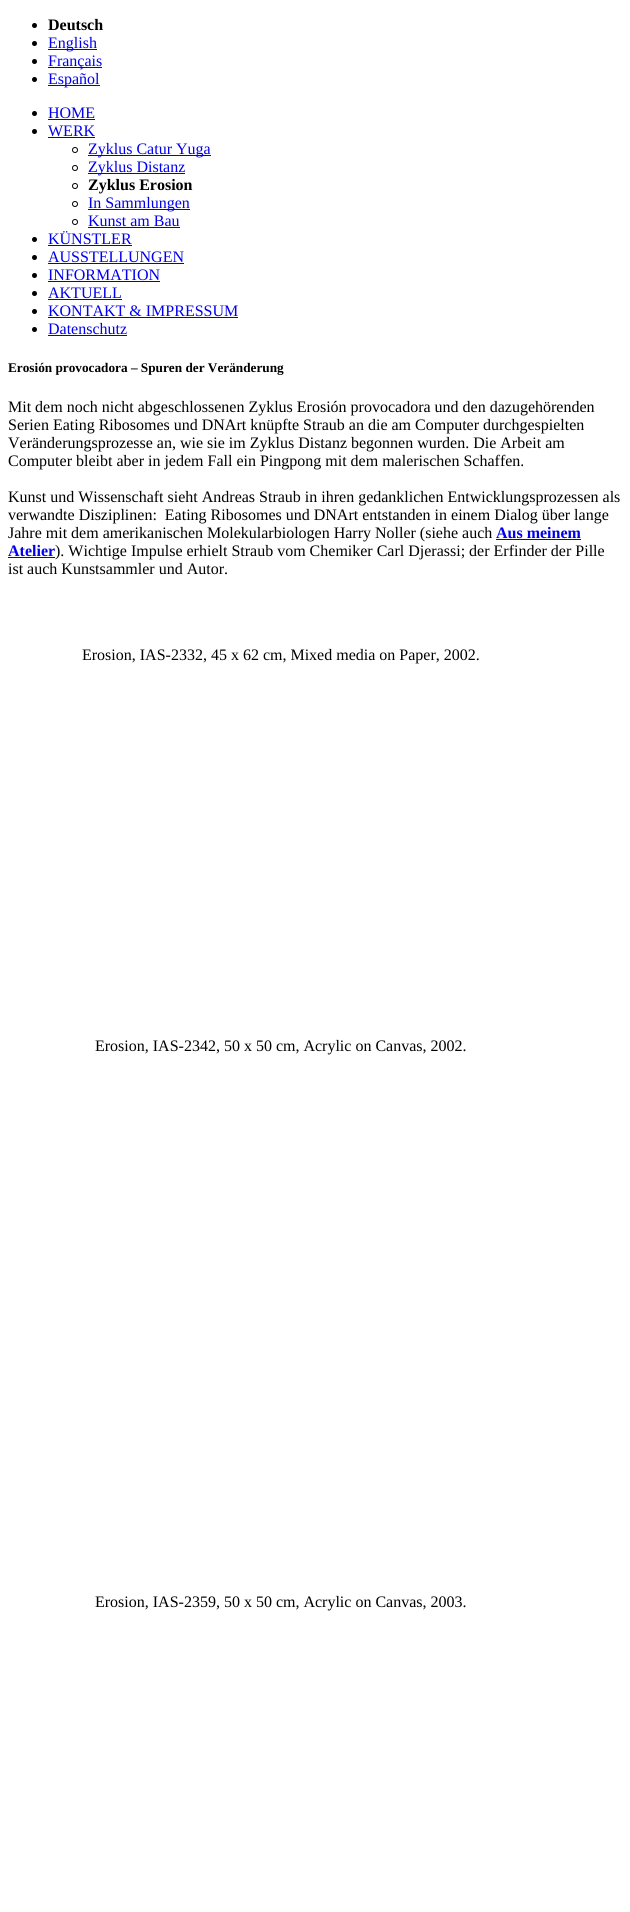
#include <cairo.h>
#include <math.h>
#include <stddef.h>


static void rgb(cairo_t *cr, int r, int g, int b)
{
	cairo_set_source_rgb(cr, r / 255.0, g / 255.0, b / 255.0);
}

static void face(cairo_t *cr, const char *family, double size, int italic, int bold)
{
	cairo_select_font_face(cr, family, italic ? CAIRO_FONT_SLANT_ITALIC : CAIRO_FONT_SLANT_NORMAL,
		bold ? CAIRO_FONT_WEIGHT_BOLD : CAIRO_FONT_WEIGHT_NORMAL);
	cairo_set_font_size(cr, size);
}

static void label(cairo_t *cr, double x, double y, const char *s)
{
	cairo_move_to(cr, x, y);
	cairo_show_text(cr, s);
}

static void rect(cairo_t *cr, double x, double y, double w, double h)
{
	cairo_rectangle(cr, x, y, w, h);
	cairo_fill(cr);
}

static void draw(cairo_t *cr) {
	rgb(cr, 255, 255, 255);
	cairo_paint(cr);
	rgb(cr, 0, 0, 0);
	cairo_arc(cr, 34.5, 25.5, 2.5, 0, 2 * M_PI);
	cairo_fill(cr);
	face(cr, "Liberation Serif", 16, 0, 1);
	label(cr, 48, 30, "Deutsch");
	cairo_new_path(cr);
	cairo_arc(cr, 34.5, 43.5, 2.5, 0, 2 * M_PI);
	cairo_fill(cr);
	rgb(cr, 0, 0, 238);
	rect(cr, 48, 49, 49, 1);
	face(cr, "Liberation Serif", 16, 0, 0);
	label(cr, 48, 48, "English");
	rgb(cr, 0, 0, 0);
	cairo_new_path(cr);
	cairo_arc(cr, 34.5, 61.5, 2.5, 0, 2 * M_PI);
	cairo_fill(cr);
	rgb(cr, 0, 0, 238);
	rect(cr, 48, 67, 54, 1);
	label(cr, 48, 66, "Français");
	rgb(cr, 0, 0, 0);
	cairo_new_path(cr);
	cairo_arc(cr, 34.5, 79.5, 2.5, 0, 2 * M_PI);
	cairo_fill(cr);
	rgb(cr, 0, 0, 238);
	rect(cr, 48, 85, 52, 1);
	label(cr, 48, 84, "Español");
	rgb(cr, 0, 0, 0);
	cairo_new_path(cr);
	cairo_arc(cr, 34.5, 113.5, 2.5, 0, 2 * M_PI);
	cairo_fill(cr);
	rgb(cr, 0, 0, 238);
	label(cr, 48, 118, "HOME");
	rect(cr, 48, 119, 47, 1);
	rgb(cr, 0, 0, 0);
	cairo_new_path(cr);
	cairo_arc(cr, 34.5, 131.5, 2.5, 0, 2 * M_PI);
	cairo_fill(cr);
	rgb(cr, 0, 0, 238);
	label(cr, 48, 136, "WERK");
	rect(cr, 48, 137, 47, 1);
	cairo_new_path(cr);
	cairo_arc(cr, 75, 150, 2.5, 0, 2 * M_PI);
	rgb(cr, 0, 0, 0);
	cairo_set_line_width(cr, 1);
	cairo_stroke(cr);
	rgb(cr, 0, 0, 238);
	rect(cr, 88, 155, 123, 1);
	label(cr, 88, 154, "Zyklus Catur Yuga");
	cairo_new_path(cr);
	cairo_arc(cr, 75, 168, 2.5, 0, 2 * M_PI);
	rgb(cr, 0, 0, 0);
	cairo_stroke(cr);
	rgb(cr, 0, 0, 238);
	rect(cr, 88, 173, 97, 1);
	label(cr, 88, 172, "Zyklus Distanz");
	cairo_new_path(cr);
	cairo_arc(cr, 75, 186, 2.5, 0, 2 * M_PI);
	rgb(cr, 0, 0, 0);
	cairo_stroke(cr);
	face(cr, "Liberation Serif", 16, 0, 1);
	label(cr, 88, 190, "Zyklus Erosion");
	cairo_new_path(cr);
	cairo_arc(cr, 75, 204, 2.5, 0, 2 * M_PI);
	cairo_stroke(cr);
	rgb(cr, 0, 0, 238);
	rect(cr, 88, 209, 102, 1);
	face(cr, "Liberation Serif", 16, 0, 0);
	label(cr, 88, 208, "In Sammlungen");
	cairo_new_path(cr);
	cairo_arc(cr, 75, 222, 2.5, 0, 2 * M_PI);
	rgb(cr, 0, 0, 0);
	cairo_stroke(cr);
	rgb(cr, 0, 0, 238);
	label(cr, 88, 226, "Kunst am Bau");
	rect(cr, 88, 227, 92, 1);
	rgb(cr, 0, 0, 0);
	cairo_new_path(cr);
	cairo_arc(cr, 34.5, 239.5, 2.5, 0, 2 * M_PI);
	cairo_fill(cr);
	rgb(cr, 0, 0, 238);
	label(cr, 48, 244, "KÜNSTLER");
	rect(cr, 48, 245, 84, 1);
	rgb(cr, 0, 0, 0);
	cairo_new_path(cr);
	cairo_arc(cr, 34.5, 257.5, 2.5, 0, 2 * M_PI);
	cairo_fill(cr);
	rgb(cr, 0, 0, 238);
	label(cr, 48, 262, "AUSSTELLUNGEN");
	rect(cr, 48, 263, 136, 1);
	rgb(cr, 0, 0, 0);
	cairo_new_path(cr);
	cairo_arc(cr, 34.5, 275.5, 2.5, 0, 2 * M_PI);
	cairo_fill(cr);
	rgb(cr, 0, 0, 238);
	label(cr, 48, 280, "INFORMATION");
	rect(cr, 48, 281, 112, 1);
	rgb(cr, 0, 0, 0);
	cairo_new_path(cr);
	cairo_arc(cr, 34.5, 293.5, 2.5, 0, 2 * M_PI);
	cairo_fill(cr);
	rgb(cr, 0, 0, 238);
	label(cr, 48, 298, "AKTUELL");
	rect(cr, 48, 299, 74, 1);
	rgb(cr, 0, 0, 0);
	cairo_new_path(cr);
	cairo_arc(cr, 34.5, 311.5, 2.5, 0, 2 * M_PI);
	cairo_fill(cr);
	rgb(cr, 0, 0, 238);
	label(cr, 48, 316, "KONTAKT & IMPRESSUM");
	rect(cr, 48, 317, 190, 1);
	rgb(cr, 0, 0, 0);
	cairo_new_path(cr);
	cairo_arc(cr, 34.5, 329.5, 2.5, 0, 2 * M_PI);
	cairo_fill(cr);
	rgb(cr, 0, 0, 238);
	label(cr, 48, 334, "Datenschutz");
	rect(cr, 48, 335, 79, 1);
	face(cr, "Liberation Serif", 13.25, 0, 1);
	rgb(cr, 0, 0, 0);
	label(cr, 8, 372, "Erosión provocadora – Spuren der Veränderung");
	face(cr, "Liberation Serif", 16, 0, 0);
	label(cr, 8, 412, "Mit dem noch nicht abgeschlossenen Zyklus Erosión provocadora und den dazugehörenden");
	label(cr, 8, 430, "Serien Eating Ribosomes und DNArt knüpfte Straub an die am Computer durchgespielten");
	label(cr, 8, 448, "Veränderungsprozesse an, wie sie im Zyklus Distanz begonnen wurden. Die Arbeit am");
	label(cr, 8, 466, "Computer bleibt aber in jedem Fall ein Pingpong mit dem malerischen Schaffen.");
	label(cr, 8, 502, "Kunst und Wissenschaft sieht Andreas Straub in ihren gedanklichen Entwicklungsprozessen als");
	label(cr, 8, 520, "verwandte Disziplinen:  Eating Ribosomes und DNArt entstanden in einem Dialog über lange");
	label(cr, 8, 538, "Jahre mit dem amerikanischen Molekularbiologen Harry Noller (siehe auch");
	face(cr, "Liberation Serif", 16, 0, 1);
	rgb(cr, 0, 0, 238);
	label(cr, 496, 538, "Aus meinem");
	rect(cr, 496, 539, 85, 1);
	label(cr, 8, 556, "Atelier");
	rect(cr, 8, 557, 47, 1);
	face(cr, "Liberation Serif", 16, 0, 0);
	rgb(cr, 0, 0, 0);
	label(cr, 55, 556, "). Wichtige Impulse erhielt Straub vom Chemiker Carl Djerassi; der Erfinder der Pille");
	label(cr, 8, 574, "ist auch Kunstsammler und Autor.");
	label(cr, 82, 660, "Erosion, IAS-2332, 45 x 62 cm, Mixed media on Paper, 2002.");
	label(cr, 95, 1051, "Erosion, IAS-2342, 50 x 50 cm, Acrylic on Canvas, 2002.");
	label(cr, 95, 1607, "Erosion, IAS-2359, 50 x 50 cm, Acrylic on Canvas, 2003.");
}

int main(void) {
	cairo_surface_t *surface = cairo_image_surface_create(CAIRO_FORMAT_RGB24, 630, 1912);
	cairo_t *cr = cairo_create(surface);
	cairo_font_options_t *options = cairo_font_options_create();
	cairo_font_options_set_hint_metrics(options, CAIRO_HINT_METRICS_OFF);
	cairo_font_options_set_hint_style(options, CAIRO_HINT_STYLE_NONE);
	cairo_set_font_options(cr, options);
	cairo_set_miter_limit(cr, 4);
	draw(cr);
	cairo_surface_write_to_png(surface, "render.png");
	cairo_font_options_destroy(options);
	cairo_destroy(cr);
	cairo_surface_destroy(surface);
	return 0;
}
